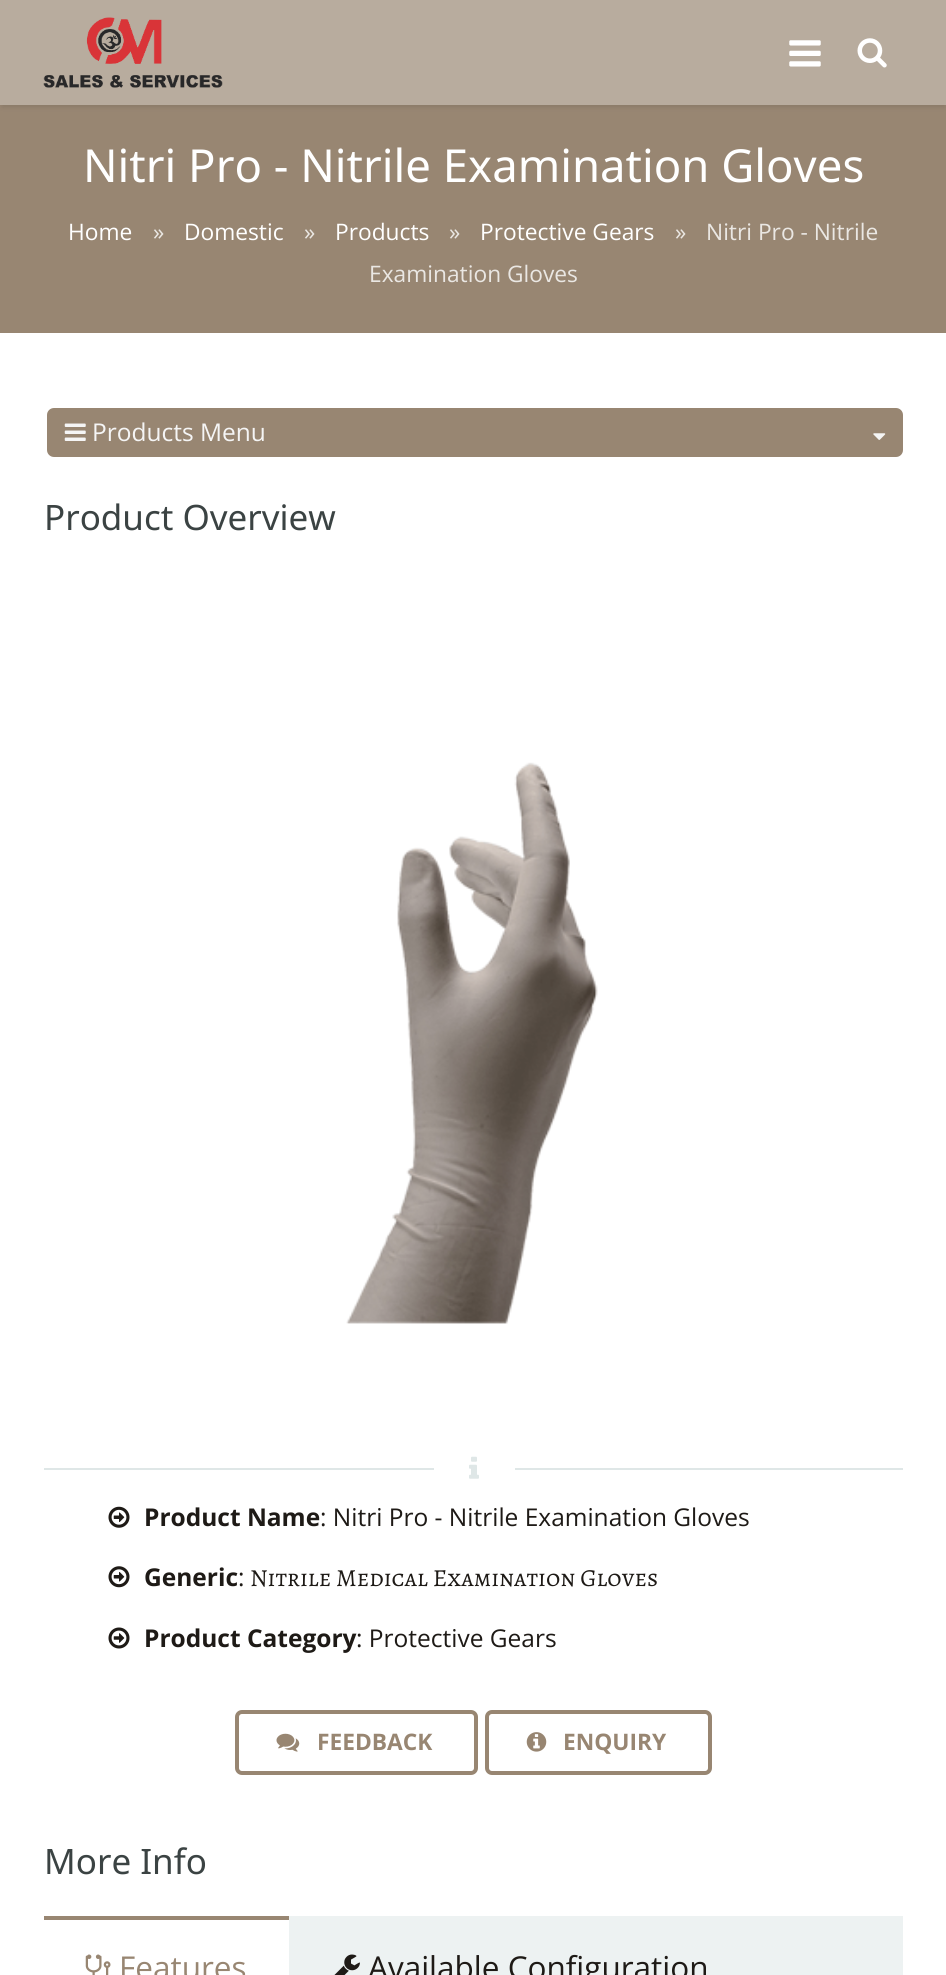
#include <cairo.h>
#include <math.h>
#include <stddef.h>


static void rgb(cairo_t *cr, int r, int g, int b)
{
	cairo_set_source_rgb(cr, r / 255.0, g / 255.0, b / 255.0);
}

static void face(cairo_t *cr, const char *family, double size, int italic, int bold)
{
	cairo_select_font_face(cr, family, italic ? CAIRO_FONT_SLANT_ITALIC : CAIRO_FONT_SLANT_NORMAL,
		bold ? CAIRO_FONT_WEIGHT_BOLD : CAIRO_FONT_WEIGHT_NORMAL);
	cairo_set_font_size(cr, size);
}

static void label(cairo_t *cr, double x, double y, const char *s)
{
	cairo_move_to(cr, x, y);
	cairo_show_text(cr, s);
}

static void rect(cairo_t *cr, double x, double y, double w, double h)
{
	cairo_rectangle(cr, x, y, w, h);
	cairo_fill(cr);
}

static void rrect(cairo_t *cr, double x, double y, double w, double h, double r)
{
	cairo_new_sub_path(cr);
	cairo_arc(cr, x + w - r, y + h - r, r, 0, M_PI / 2);
	cairo_arc(cr, x + r, y + h - r, r, M_PI / 2, M_PI);
	cairo_arc(cr, x + r, y + r, r, M_PI, 1.5 * M_PI);
	cairo_arc(cr, x + w - r, y + r, r, 1.5 * M_PI, 2 * M_PI);
	cairo_close_path(cr);
}

static void soft_shadow(cairo_t *cr, double x, double y, double w, double h, double r, double blur, double alpha)
{
	cairo_push_group_with_content(cr, CAIRO_CONTENT_ALPHA);
	cairo_set_operator(cr, CAIRO_OPERATOR_SOURCE);
	for (int i = 15; i >= -15 && fmin(w, h) + blur * i / 3 > 0; i -= 2) {
		double e = blur * i / 6;
		cairo_set_source_rgba(cr, 0, 0, 0, alpha * erfc((i - 1) / 8.5) / 2);
		rrect(cr, x - e, y - e, w + 2 * e, h + 2 * e, fmax(0, fmin(r + e + blur * .6, fmin(w, h) / 2 + e)));
		cairo_fill(cr);
	}
	cairo_pattern_t *soft = cairo_pop_group(cr);
	cairo_mask(cr, soft);
	cairo_pattern_destroy(soft);
}

static void image(cairo_t *cr, const char *path, double x, double y, double w, double h)
{
	cairo_surface_t *image = cairo_image_surface_create_from_png(path);
	cairo_save(cr);
	cairo_set_source_surface(cr, image, x, y);
	cairo_rectangle(cr, x, y, w, h);
	cairo_fill(cr);
	cairo_restore(cr);
	cairo_surface_destroy(image);
}

static void draw(cairo_t *cr) {
	rgb(cr, 255, 255, 255);
	cairo_paint(cr);
	rgb(cr, 152, 134, 114);
	rect(cr, 0, 105, 946, 228);
	rgb(cr, 0, 0, 0);
	soft_shadow(cr, 2, 5, 943, 102, 0, 2.5, 0.1);
	rgb(cr, 184, 172, 158);
	rect(cr, 0, 0, 946, 105);
	image(cr, "image0.png", 43, 17, 180, 71);
	image(cr, "image1.png", 789, 40, 32, 27);
	image(cr, "image2.png", 857, 38, 30, 30);
	face(cr, "Noto Sans", 45.5, 0, 0);
	rgb(cr, 255, 255, 255);
	label(cr, 83, 182, "Nitri Pro - Nitrile Examination Gloves");
	face(cr, "Open Sans", 22.75, 0, 0);
	label(cr, 68, 240, "Home");
	rgb(cr, 234, 231, 227);
	label(cr, 153, 240, "»");
	rgb(cr, 255, 255, 255);
	label(cr, 184, 240, "Domestic");
	rgb(cr, 234, 231, 227);
	label(cr, 304, 240, "»");
	rgb(cr, 255, 255, 255);
	label(cr, 335, 240, "Products");
	rgb(cr, 234, 231, 227);
	label(cr, 449, 240, "»");
	rgb(cr, 255, 255, 255);
	label(cr, 480, 240, "Protective Gears");
	rgb(cr, 234, 231, 227);
	label(cr, 675, 240, "»");
	label(cr, 706, 240, "Nitri Pro - Nitrile");
	label(cr, 369, 282, "Examination Gloves");
	rgb(cr, 152, 134, 114);
	rrect(cr, 47, 408, 856, 49, 7);
	cairo_fill(cr);
	image(cr, "image3.png", 64, 423, 22, 18);
	face(cr, "Open Sans", 24.5, 0, 0);
	rgb(cr, 245, 245, 245);
	label(cr, 92, 441, "Products Menu");
	image(cr, "image4.png", 873, 433, 13, 7);
	face(cr, "Noto Sans", 35, 0, 0);
	rgb(cr, 59, 67, 67);
	label(cr, 44, 530, "Product Overview");
	image(cr, "image5.png", 346, 762, 252, 562);
	rgb(cr, 223, 231, 231);
	rect(cr, 44, 1468, 390, 2);
	image(cr, "image6.png", 469, 1456, 10, 23);
	rect(cr, 515, 1468, 388, 2);
	image(cr, "image7.png", 108, 1506, 22, 22);
	face(cr, "Open Sans", 24.5, 0, 1);
	rgb(cr, 30, 26, 22);
	label(cr, 144, 1526, "Product Name");
	face(cr, "Open Sans", 24.5, 0, 0);
	label(cr, 320, 1526, ": Nitri Pro - Nitrile Examination Gloves");
	image(cr, "image8.png", 108, 1566, 22, 22);
	face(cr, "Open Sans", 24.5, 0, 1);
	label(cr, 144, 1586, "Generic");
	face(cr, "Open Sans", 24.5, 0, 0);
	label(cr, 238, 1586, ":");
	face(cr, "Alegreya SC", 24.5, 0, 0);
	label(cr, 250, 1586, "Nitrile Medical Examination Gloves");
	image(cr, "image9.png", 108, 1627, 22, 22);
	face(cr, "Open Sans", 24.5, 0, 1);
	label(cr, 144, 1647, "Product Category");
	face(cr, "Open Sans", 24.5, 0, 0);
	label(cr, 356, 1647, ": Protective Gears");
	rrect(cr, 237, 1712, 239, 61, 5);
	rgb(cr, 152, 134, 114);
	cairo_set_line_width(cr, 4);
	cairo_stroke(cr);
	image(cr, "image10.png", 276, 1733, 24, 19);
	face(cr, "Open Sans", 22.75, 0, 1);
	label(cr, 317, 1750, "FEEDBACK");
	rrect(cr, 487, 1712, 223, 61, 5);
	cairo_stroke(cr);
	image(cr, "image11.png", 526, 1732, 21, 20);
	label(cr, 563, 1750, "ENQUIRY");
	face(cr, "Noto Sans", 35, 0, 0);
	rgb(cr, 59, 67, 67);
	label(cr, 44, 1874, "More Info");
	rgb(cr, 237, 242, 242);
	rect(cr, 289, 1916, 614, 59);
	rgb(cr, 152, 134, 114);
	rect(cr, 44, 1916, 245, 4);
	image(cr, "image12.png", 85, 1954, 26, 21);
	face(cr, "Open Sans", 31.5, 0, 0);
	label(cr, 119, 1979, "Features");
	image(cr, "image13.png", 334, 1954, 26, 21);
	rgb(cr, 30, 26, 22);
	label(cr, 368, 1979, "Available Configuration");
}

int main(void) {
	cairo_surface_t *surface = cairo_image_surface_create(CAIRO_FORMAT_RGB24, 946, 1975);
	cairo_t *cr = cairo_create(surface);
	cairo_font_options_t *options = cairo_font_options_create();
	cairo_font_options_set_hint_metrics(options, CAIRO_HINT_METRICS_OFF);
	cairo_font_options_set_hint_style(options, CAIRO_HINT_STYLE_NONE);
	cairo_set_font_options(cr, options);
	cairo_set_miter_limit(cr, 4);
	draw(cr);
	cairo_surface_write_to_png(surface, "render.png");
	cairo_font_options_destroy(options);
	cairo_destroy(cr);
	cairo_surface_destroy(surface);
	return 0;
}
